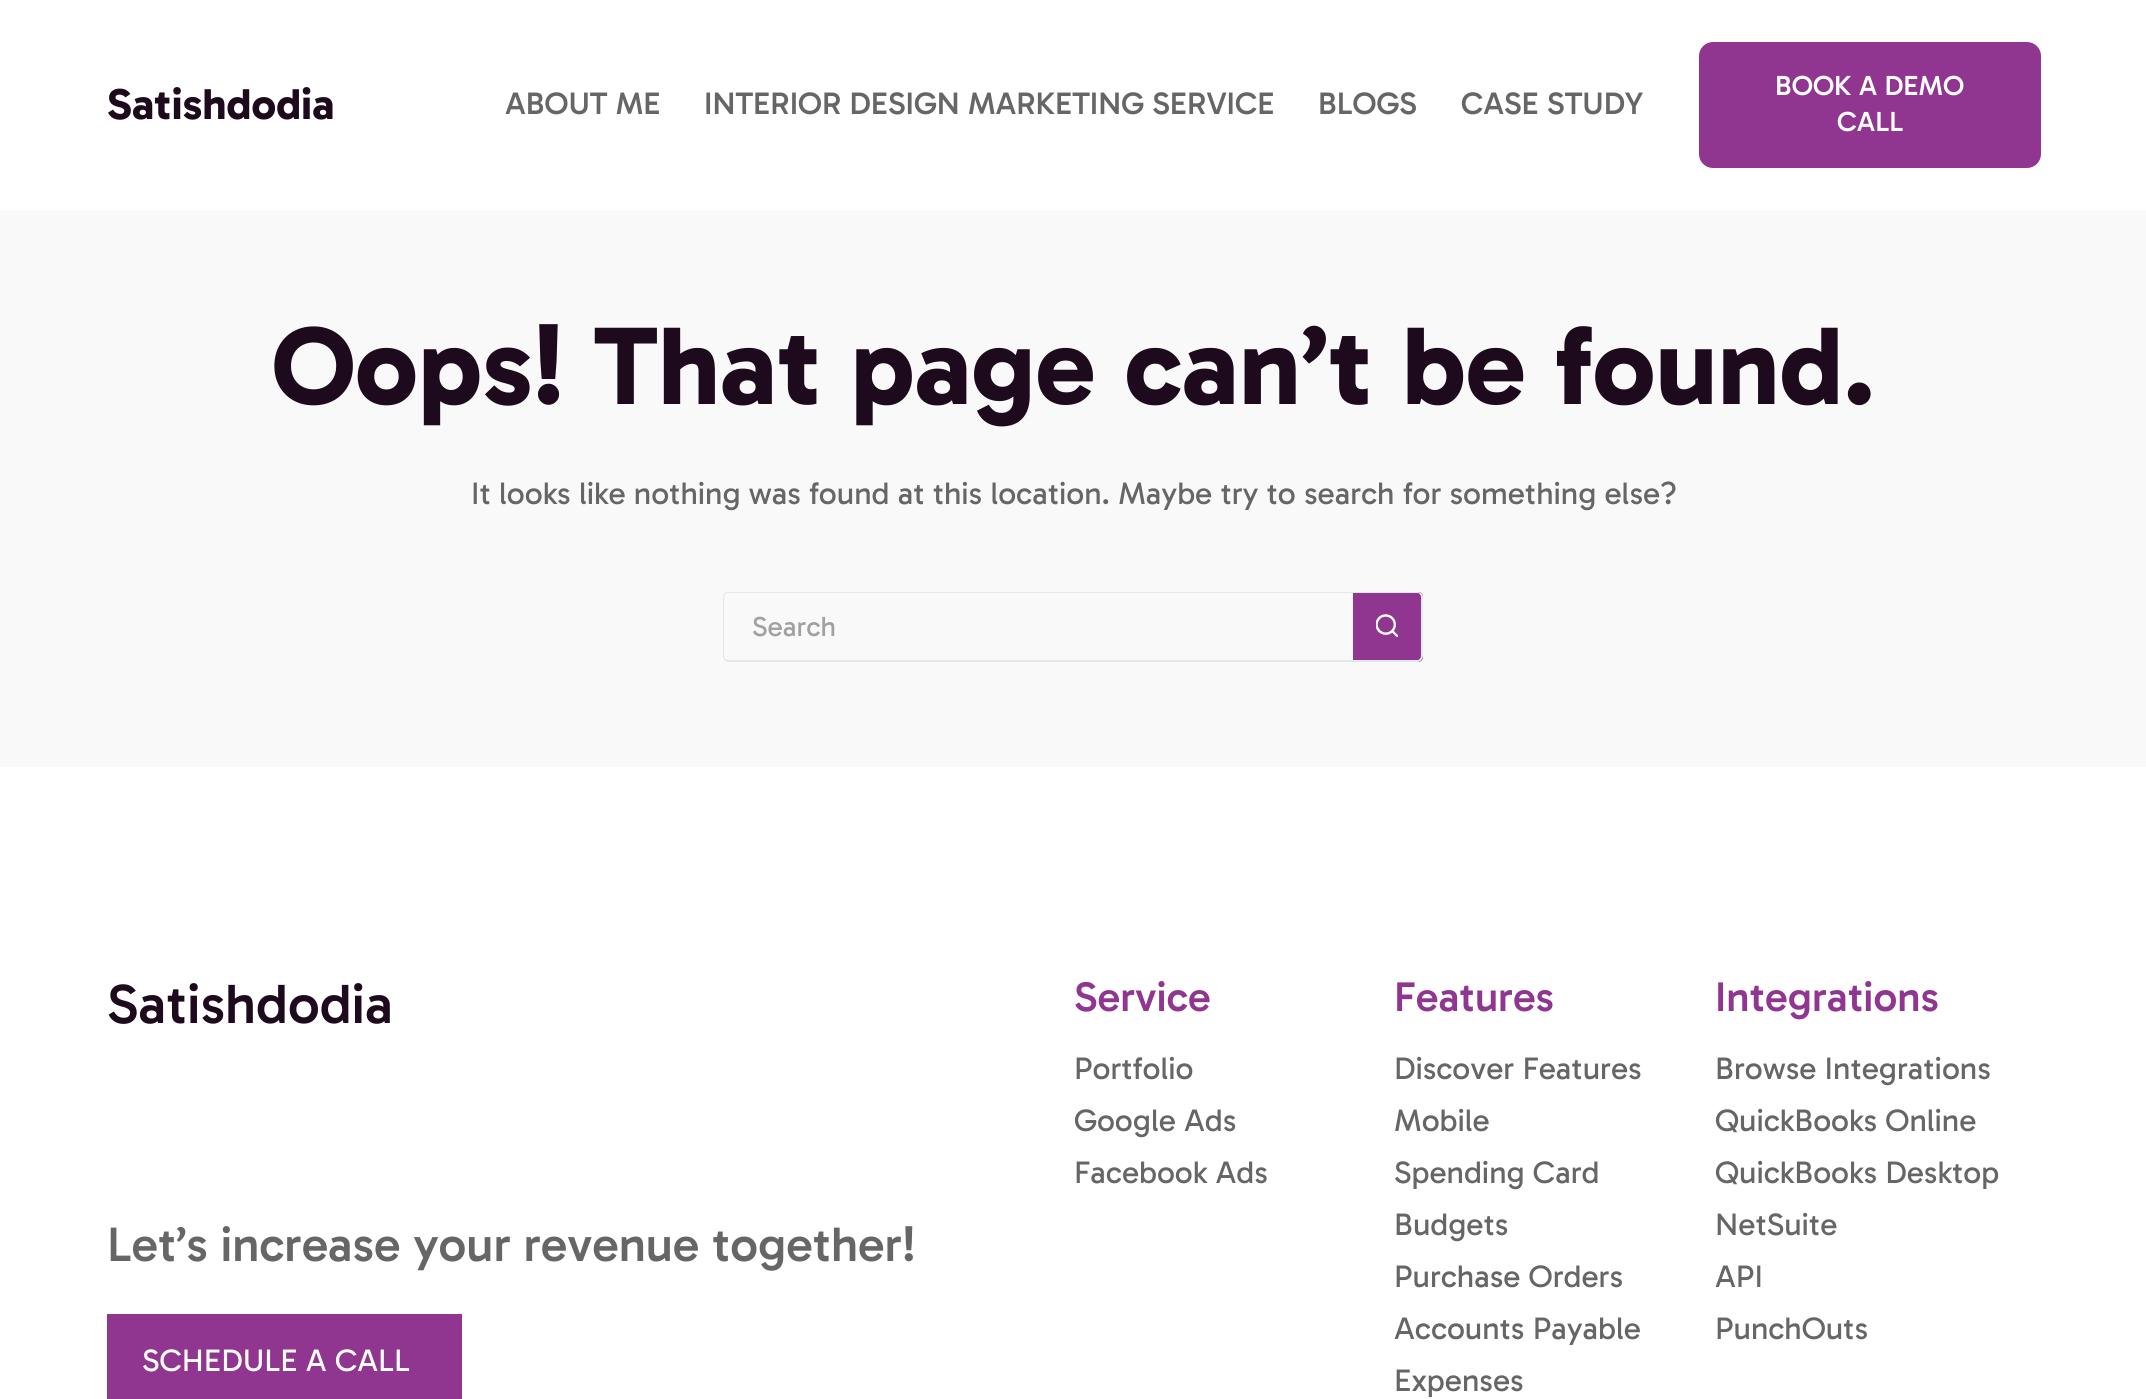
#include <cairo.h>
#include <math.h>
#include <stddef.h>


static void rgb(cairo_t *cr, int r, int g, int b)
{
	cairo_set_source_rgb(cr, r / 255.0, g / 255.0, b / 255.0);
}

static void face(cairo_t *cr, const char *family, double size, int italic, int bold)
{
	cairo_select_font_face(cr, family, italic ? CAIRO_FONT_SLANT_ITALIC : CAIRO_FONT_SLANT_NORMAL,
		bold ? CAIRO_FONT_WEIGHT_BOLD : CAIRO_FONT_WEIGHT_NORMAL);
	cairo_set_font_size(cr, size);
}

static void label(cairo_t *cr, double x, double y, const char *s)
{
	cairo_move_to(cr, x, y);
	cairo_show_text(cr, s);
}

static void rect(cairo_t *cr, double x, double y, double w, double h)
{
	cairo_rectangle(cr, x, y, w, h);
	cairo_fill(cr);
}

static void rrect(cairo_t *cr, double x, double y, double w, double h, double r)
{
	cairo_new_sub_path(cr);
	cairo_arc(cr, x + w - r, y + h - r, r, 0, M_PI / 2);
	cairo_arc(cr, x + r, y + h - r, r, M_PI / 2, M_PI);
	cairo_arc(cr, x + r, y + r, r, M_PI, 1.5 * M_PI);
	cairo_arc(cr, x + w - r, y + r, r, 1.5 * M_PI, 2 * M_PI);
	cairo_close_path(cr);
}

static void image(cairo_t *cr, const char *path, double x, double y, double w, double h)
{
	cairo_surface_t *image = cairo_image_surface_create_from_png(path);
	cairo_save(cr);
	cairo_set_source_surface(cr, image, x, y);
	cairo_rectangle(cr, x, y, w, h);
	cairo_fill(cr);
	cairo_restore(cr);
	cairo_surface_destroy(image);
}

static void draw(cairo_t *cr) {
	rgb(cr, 249, 249, 249);
	cairo_paint(cr);
	rgb(cr, 255, 255, 255);
	rect(cr, 0, 0, 2146, 210);
	face(cr, "Gabarito", 43.75, 0, 1);
	rgb(cr, 29, 11, 29);
	label(cr, 107, 119, "Satishdodia");
	face(cr, "Gabarito Medium", 31.5, 0, 0);
	rgb(cr, 102, 102, 102);
	label(cr, 505, 114, "ABOUT ME");
	label(cr, 704, 114, "INTERIOR DESIGN MARKETING SERVICE");
	label(cr, 1318, 114, "BLOGS");
	label(cr, 1461, 114, "CASE STUDY");
	rgb(cr, 144, 54, 144);
	rrect(cr, 1699, 42, 342, 126, 14);
	cairo_fill(cr);
	face(cr, "Gabarito Medium", 28, 0, 0);
	rgb(cr, 255, 255, 255);
	label(cr, 1775, 95, "BOOK A DEMO");
	label(cr, 1837, 131, "CALL");
	face(cr, "Gabarito", 112, 0, 1);
	rgb(cr, 29, 11, 29);
	label(cr, 272, 404, "Oops! That page can’t be found.");
	face(cr, "Gabarito", 31.5, 0, 0);
	rgb(cr, 102, 102, 102);
	label(cr, 471, 504, "It looks like nothing was found at this location. Maybe try to search for something else?");
	rgb(cr, 225, 232, 237);
	cairo_set_fill_rule(cr, CAIRO_FILL_RULE_EVEN_ODD);
	cairo_new_path(cr);
	cairo_move_to(cr, 728, 592);
	cairo_line_to(cr, 1353, 592);
	cairo_line_to(cr, 1353, 662);
	cairo_line_to(cr, 728, 662);
	cairo_curve_to(cr, 725, 662, 723, 659, 723, 656);
	cairo_line_to(cr, 723, 597);
	cairo_curve_to(cr, 723, 594, 725, 592, 728, 592);
	cairo_close_path(cr);
	cairo_move_to(cr, 728, 593);
	cairo_line_to(cr, 1353, 593);
	cairo_line_to(cr, 1353, 660);
	cairo_line_to(cr, 728, 660);
	cairo_curve_to(cr, 726, 660, 724, 658, 724, 656);
	cairo_line_to(cr, 724, 597);
	cairo_curve_to(cr, 724, 595, 726, 593, 728, 593);
	cairo_close_path(cr);
	cairo_fill(cr);
	face(cr, "Gabarito", 28, 0, 0);
	rgb(cr, 161, 161, 161);
	label(cr, 752, 636, "Search");
	rgb(cr, 144, 54, 144);
	cairo_new_path(cr);
	cairo_move_to(cr, 1353, 592);
	cairo_line_to(cr, 1418, 592);
	cairo_curve_to(cr, 1421, 592, 1423, 594, 1423, 597);
	cairo_line_to(cr, 1423, 657);
	cairo_curve_to(cr, 1423, 660, 1421, 662, 1418, 662);
	cairo_line_to(cr, 1353, 662);
	cairo_close_path(cr);
	cairo_fill(cr);
	rgb(cr, 225, 232, 237);
	cairo_new_path(cr);
	cairo_move_to(cr, 1353, 592);
	cairo_line_to(cr, 1418, 592);
	cairo_curve_to(cr, 1420, 592, 1423, 594, 1423, 597);
	cairo_line_to(cr, 1423, 656);
	cairo_curve_to(cr, 1423, 659, 1420, 662, 1418, 662);
	cairo_line_to(cr, 1353, 662);
	cairo_close_path(cr);
	cairo_move_to(cr, 1353, 593);
	cairo_line_to(cr, 1418, 593);
	cairo_curve_to(cr, 1419, 593, 1421, 595, 1421, 597);
	cairo_line_to(cr, 1421, 656);
	cairo_curve_to(cr, 1421, 658, 1419, 660, 1418, 660);
	cairo_line_to(cr, 1353, 660);
	cairo_close_path(cr);
	cairo_fill(cr);
	image(cr, "image0.png", 1376, 614, 22, 23);
	rgb(cr, 255, 255, 255);
	rect(cr, 0, 767, 2146, 632);
	face(cr, "Gabarito Medium", 56, 0, 0);
	rgb(cr, 29, 11, 29);
	label(cr, 107, 1023, "Satishdodia");
	face(cr, "Gabarito Medium", 49, 0, 0);
	rgb(cr, 102, 102, 102);
	label(cr, 107, 1261, "Let’s increase your revenue together!");
	rgb(cr, 144, 54, 144);
	rect(cr, 107, 1314, 355, 85);
	face(cr, "Gabarito", 31.5, 0, 0);
	rgb(cr, 255, 255, 255);
	label(cr, 142, 1371, "SCHEDULE A CALL");
	face(cr, "Gabarito Medium", 42, 0, 0);
	rgb(cr, 144, 54, 144);
	label(cr, 1074, 1011, "Service");
	face(cr, "Gabarito", 31.5, 0, 0);
	rgb(cr, 102, 102, 102);
	label(cr, 1074, 1079, "Portfolio");
	label(cr, 1074, 1131, "Google Ads");
	label(cr, 1074, 1183, "Facebook Ads");
	face(cr, "Gabarito Medium", 42, 0, 0);
	rgb(cr, 144, 54, 144);
	label(cr, 1394, 1011, "Features");
	face(cr, "Gabarito", 31.5, 0, 0);
	rgb(cr, 102, 102, 102);
	label(cr, 1394, 1079, "Discover Features");
	label(cr, 1394, 1131, "Mobile");
	label(cr, 1394, 1183, "Spending Card");
	label(cr, 1394, 1235, "Budgets");
	label(cr, 1394, 1287, "Purchase Orders");
	label(cr, 1394, 1339, "Accounts Payable");
	label(cr, 1394, 1391, "Expenses");
	face(cr, "Gabarito Medium", 42, 0, 0);
	rgb(cr, 144, 54, 144);
	label(cr, 1715, 1011, "Integrations");
	face(cr, "Gabarito", 31.5, 0, 0);
	rgb(cr, 102, 102, 102);
	label(cr, 1715, 1079, "Browse Integrations");
	label(cr, 1715, 1131, "QuickBooks Online");
	label(cr, 1715, 1183, "QuickBooks Desktop");
	label(cr, 1715, 1235, "NetSuite");
	label(cr, 1715, 1287, "API");
	label(cr, 1715, 1339, "PunchOuts");
}

int main(void) {
	cairo_surface_t *surface = cairo_image_surface_create(CAIRO_FORMAT_RGB24, 2146, 1399);
	cairo_t *cr = cairo_create(surface);
	cairo_font_options_t *options = cairo_font_options_create();
	cairo_font_options_set_hint_metrics(options, CAIRO_HINT_METRICS_OFF);
	cairo_font_options_set_hint_style(options, CAIRO_HINT_STYLE_NONE);
	cairo_set_font_options(cr, options);
	cairo_set_miter_limit(cr, 4);
	draw(cr);
	cairo_surface_write_to_png(surface, "render.png");
	cairo_font_options_destroy(options);
	cairo_destroy(cr);
	cairo_surface_destroy(surface);
	return 0;
}
